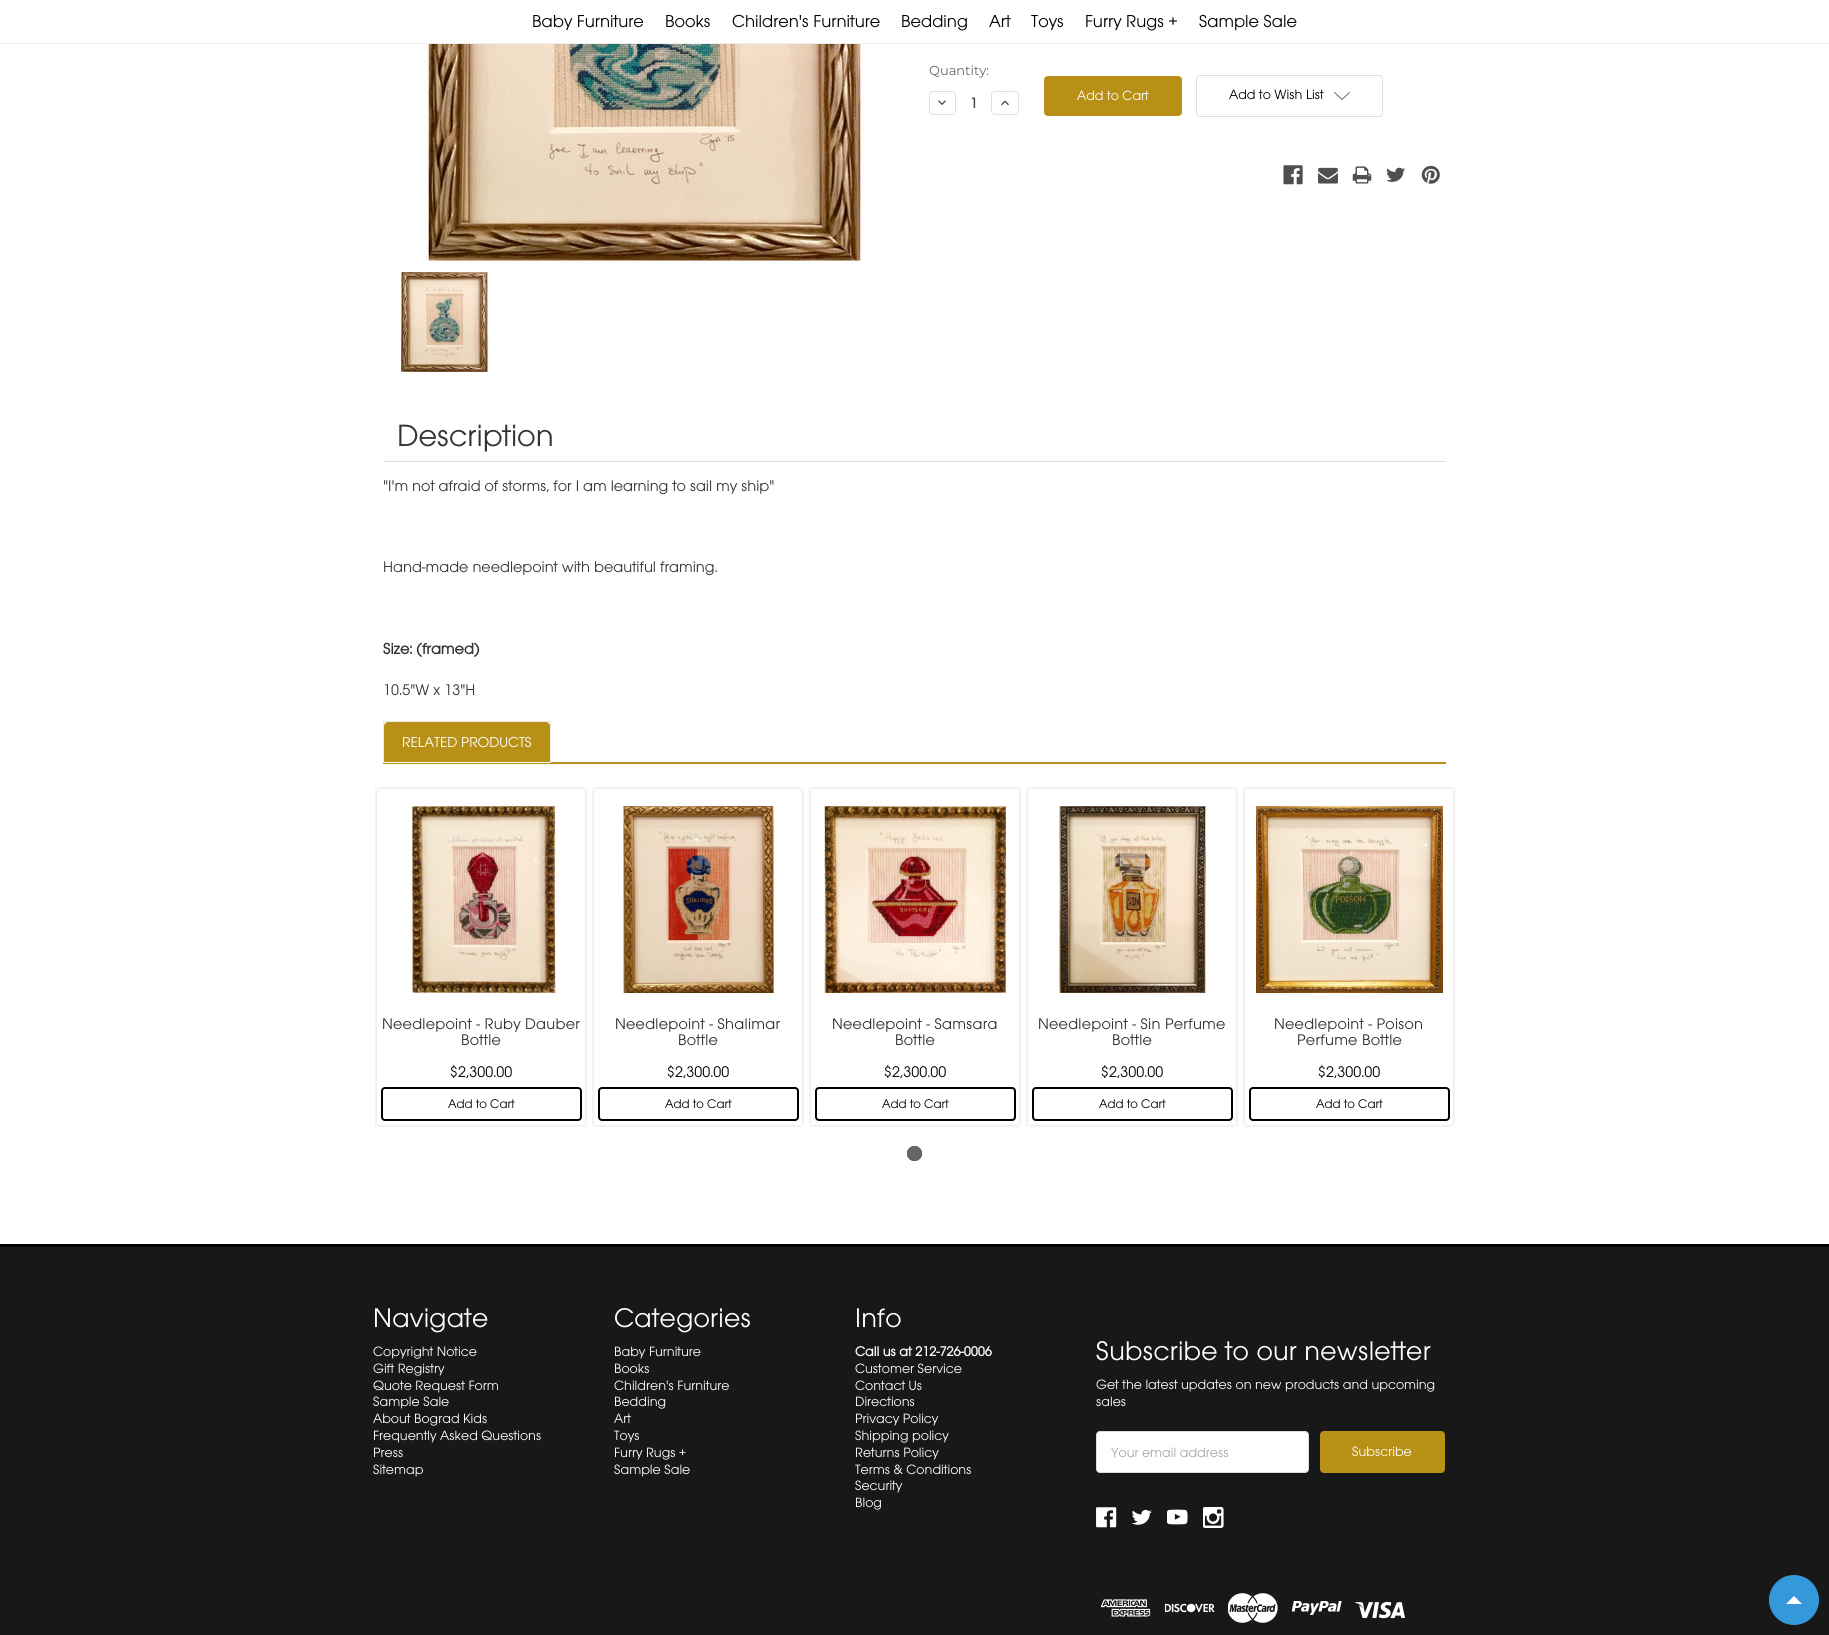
#include <cairo.h>
#include <math.h>
#include <stddef.h>


static void rgb(cairo_t *cr, int r, int g, int b)
{
	cairo_set_source_rgb(cr, r / 255.0, g / 255.0, b / 255.0);
}

static void face(cairo_t *cr, const char *family, double size, int italic, int bold)
{
	cairo_select_font_face(cr, family, italic ? CAIRO_FONT_SLANT_ITALIC : CAIRO_FONT_SLANT_NORMAL,
		bold ? CAIRO_FONT_WEIGHT_BOLD : CAIRO_FONT_WEIGHT_NORMAL);
	cairo_set_font_size(cr, size);
}

static void label(cairo_t *cr, double x, double y, const char *s)
{
	cairo_move_to(cr, x, y);
	cairo_show_text(cr, s);
}

static void tracked(cairo_t *cr, double x, double y, const char *s, double letter, double word)
{
	cairo_move_to(cr, x, y);
	while (*s) {
		char ch[5] = {0};
		int n = 0;
		do ch[n++] = *s++; while ((*s & 0xC0) == 0x80);
		cairo_show_text(cr, ch);
		cairo_rel_move_to(cr, letter + word * (*ch == ' '), 0);
	}
}

static void rect(cairo_t *cr, double x, double y, double w, double h)
{
	cairo_rectangle(cr, x, y, w, h);
	cairo_fill(cr);
}

static void rrect(cairo_t *cr, double x, double y, double w, double h, double r)
{
	cairo_new_sub_path(cr);
	cairo_arc(cr, x + w - r, y + h - r, r, 0, M_PI / 2);
	cairo_arc(cr, x + r, y + h - r, r, M_PI / 2, M_PI);
	cairo_arc(cr, x + r, y + r, r, M_PI, 1.5 * M_PI);
	cairo_arc(cr, x + w - r, y + r, r, 1.5 * M_PI, 2 * M_PI);
	cairo_close_path(cr);
}

static void image(cairo_t *cr, const char *path, double x, double y, double w, double h)
{
	cairo_surface_t *image = cairo_image_surface_create_from_png(path);
	cairo_save(cr);
	cairo_set_source_surface(cr, image, x, y);
	cairo_rectangle(cr, x, y, w, h);
	cairo_fill(cr);
	cairo_restore(cr);
	cairo_surface_destroy(image);
}

static void draw(cairo_t *cr) {
	rgb(cr, 255, 255, 255);
	cairo_paint(cr);
	rgb(cr, 238, 238, 238);
	rect(cr, 0, 43, 1829, 1);
	face(cr, "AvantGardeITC", 18, 0, 0);
	rgb(cr, 0, 0, 0);
	label(cr, 532, 27, "Baby Furniture");
	label(cr, 665, 27, "Books");
	label(cr, 732, 27, "Children's Furniture");
	label(cr, 901, 27, "Bedding");
	label(cr, 989, 27, "Art");
	label(cr, 1031, 27, "Toys");
	label(cr, 1085, 27, "Furry Rugs +");
	label(cr, 1199, 27, "Sample Sale");
	image(cr, "image0.png", 424, 44, 440, 217);
	image(cr, "image1.png", 401, 272, 88, 100);
	face(cr, "Montserrat", 13, 0, 0);
	rgb(cr, 102, 102, 102);
	label(cr, 929, 75, "Quantity:");
	rrect(cr, 929.5, 91.5, 26, 23, 3.5);
	rgb(cr, 223, 223, 223);
	cairo_set_line_width(cr, 1);
	cairo_stroke(cr);
	image(cr, "image2.png", 938, 100, 8, 5);
	face(cr, "AvantGardeITC", 15, 0, 1);
	rgb(cr, 69, 69, 69);
	label(cr, 970, 108, "1");
	rrect(cr, 991.5, 91.5, 27, 23, 3.5);
	rgb(cr, 223, 223, 223);
	cairo_stroke(cr);
	image(cr, "image3.png", 1001, 100, 8, 6);
	rgb(cr, 184, 144, 22);
	rrect(cr, 1044.5, 76.5, 137, 39, 3.5);
	cairo_fill_preserve(cr);
	cairo_stroke(cr);
	face(cr, "AvantGardeITC", 14, 0, 0);
	rgb(cr, 255, 255, 255);
	label(cr, 1077, 100, "Add to Cart");
	rrect(cr, 1196.5, 75.5, 186, 41, 3.5);
	rgb(cr, 223, 223, 223);
	cairo_stroke(cr);
	rgb(cr, 0, 0, 0);
	label(cr, 1229, 99, "Add to Wish List");
	image(cr, "image4.png", 1334, 92, 16, 8);
	image(cr, "image5.png", 1283, 165, 20, 20);
	image(cr, "image6.png", 1318, 167, 20, 17);
	image(cr, "image7.png", 1352, 166, 20, 18);
	image(cr, "image8.png", 1386, 167, 20, 15);
	image(cr, "image9.png", 1421, 165, 19, 19);
	rgb(cr, 221, 221, 221);
	rect(cr, 383, 461, 1063, 1);
	face(cr, "AvantGardeITC", 32, 0, 0);
	rgb(cr, 51, 51, 51);
	label(cr, 397, 446, "Description");
	face(cr, "AvantGardeITC", 16, 0, 0);
	label(cr, 383, 491, "\"I'm not afraid of storms, for I am learning to sail my ship\"");
	label(cr, 383, 572, "Hand-made needlepoint with beautiful framing.");
	face(cr, "AvantGardeITC", 16, 0, 1);
	label(cr, 383, 654, "Size: (framed)");
	face(cr, "AvantGardeITC", 16, 0, 0);
	label(cr, 383, 695, "10.5\"W x 13\"H");
	rgb(cr, 184, 144, 22);
	rect(cr, 383, 762, 1063, 2);
	rgb(cr, 232, 232, 232);
	rect(cr, 383, 721, 168, 1);
	rect(cr, 550, 721, 1, 42);
	rgb(cr, 255, 255, 255);
	rect(cr, 383, 762, 168, 1);
	rgb(cr, 232, 232, 232);
	rect(cr, 383, 721, 1, 42);
	rgb(cr, 184, 144, 22);
	cairo_new_path(cr);
	cairo_move_to(cr, 388, 722);
	cairo_line_to(cr, 546, 722);
	cairo_curve_to(cr, 548, 722, 550, 724, 550, 726);
	cairo_line_to(cr, 550, 762);
	cairo_line_to(cr, 384, 762);
	cairo_line_to(cr, 384, 726);
	cairo_curve_to(cr, 384, 724, 386, 722, 388, 722);
	cairo_close_path(cr);
	cairo_fill(cr);
	face(cr, "AvantGardeITC", 15, 0, 0);
	rgb(cr, 255, 255, 255);
	label(cr, 402, 747, "RELATED PRODUCTS");
	cairo_rectangle(cr, 375.5, 787.5, 211, 339);
	cairo_set_source_rgba(cr, 0, 0, 0, 0.04);
	cairo_stroke(cr);
	rrect(cr, 376.5, 788.5, 209, 337, 3.5);
	rgb(cr, 238, 238, 238);
	cairo_stroke(cr);
	image(cr, "image10.png", 412, 806, 144, 187);
	face(cr, "AvantGardeITC", 16, 0, 0);
	rgb(cr, 45, 45, 45);
	tracked(cr, 382, 1029, "Needlepoint - Ruby Dauber", 0.25, 0);
	tracked(cr, 461, 1045, "Bottle", 0.25, 0);
	rgb(cr, 0, 0, 0);
	label(cr, 450, 1077, "$2,300.00");
	rrect(cr, 382, 1088, 199, 32, 3);
	cairo_set_line_width(cr, 2);
	cairo_stroke(cr);
	face(cr, "AvantGardeITC", 13, 0, 0);
	label(cr, 448, 1108, "Add to Cart");
	cairo_rectangle(cr, 592.5, 787.5, 211, 339);
	cairo_set_source_rgba(cr, 0, 0, 0, 0.04);
	cairo_set_line_width(cr, 1);
	cairo_stroke(cr);
	rrect(cr, 593.5, 788.5, 209, 337, 3.5);
	rgb(cr, 238, 238, 238);
	cairo_stroke(cr);
	image(cr, "image11.png", 623, 806, 152, 187);
	face(cr, "AvantGardeITC", 16, 0, 0);
	rgb(cr, 45, 45, 45);
	tracked(cr, 615, 1029, "Needlepoint - Shalimar", 0.25, 0);
	tracked(cr, 678, 1045, "Bottle", 0.25, 0);
	rgb(cr, 0, 0, 0);
	label(cr, 667, 1077, "$2,300.00");
	rrect(cr, 599, 1088, 199, 32, 3);
	cairo_set_line_width(cr, 2);
	cairo_stroke(cr);
	face(cr, "AvantGardeITC", 13, 0, 0);
	label(cr, 665, 1108, "Add to Cart");
	cairo_rectangle(cr, 809.5, 787.5, 211, 339);
	cairo_set_source_rgba(cr, 0, 0, 0, 0.04);
	cairo_set_line_width(cr, 1);
	cairo_stroke(cr);
	rrect(cr, 810.5, 788.5, 209, 337, 3.5);
	rgb(cr, 238, 238, 238);
	cairo_stroke(cr);
	image(cr, "image12.png", 824, 806, 183, 187);
	face(cr, "AvantGardeITC", 16, 0, 0);
	rgb(cr, 45, 45, 45);
	tracked(cr, 832, 1029, "Needlepoint - Samsara", 0.25, 0);
	tracked(cr, 895, 1045, "Bottle", 0.25, 0);
	rgb(cr, 0, 0, 0);
	label(cr, 884, 1077, "$2,300.00");
	rrect(cr, 816, 1088, 199, 32, 3);
	cairo_set_line_width(cr, 2);
	cairo_stroke(cr);
	face(cr, "AvantGardeITC", 13, 0, 0);
	label(cr, 882, 1108, "Add to Cart");
	cairo_rectangle(cr, 1026.5, 787.5, 211, 339);
	cairo_set_source_rgba(cr, 0, 0, 0, 0.04);
	cairo_set_line_width(cr, 1);
	cairo_stroke(cr);
	rrect(cr, 1027.5, 788.5, 209, 337, 3.5);
	rgb(cr, 238, 238, 238);
	cairo_stroke(cr);
	image(cr, "image13.png", 1059, 806, 147, 187);
	face(cr, "AvantGardeITC", 16, 0, 0);
	rgb(cr, 45, 45, 45);
	tracked(cr, 1038, 1029, "Needlepoint - Sin Perfume", 0.25, 0);
	tracked(cr, 1112, 1045, "Bottle", 0.25, 0);
	rgb(cr, 0, 0, 0);
	label(cr, 1101, 1077, "$2,300.00");
	rrect(cr, 1033, 1088, 199, 32, 3);
	cairo_set_line_width(cr, 2);
	cairo_stroke(cr);
	face(cr, "AvantGardeITC", 13, 0, 0);
	label(cr, 1099, 1108, "Add to Cart");
	cairo_rectangle(cr, 1243.5, 787.5, 211, 339);
	cairo_set_source_rgba(cr, 0, 0, 0, 0.04);
	cairo_set_line_width(cr, 1);
	cairo_stroke(cr);
	rrect(cr, 1244.5, 788.5, 209, 337, 3.5);
	rgb(cr, 238, 238, 238);
	cairo_stroke(cr);
	image(cr, "image14.png", 1256, 806, 187, 187);
	face(cr, "AvantGardeITC", 16, 0, 0);
	rgb(cr, 45, 45, 45);
	tracked(cr, 1274, 1029, "Needlepoint - Poison", 0.25, 0);
	tracked(cr, 1297, 1045, "Perfume Bottle", 0.25, 0);
	rgb(cr, 0, 0, 0);
	label(cr, 1318, 1077, "$2,300.00");
	rrect(cr, 1250, 1088, 199, 32, 3);
	cairo_set_line_width(cr, 2);
	cairo_stroke(cr);
	face(cr, "AvantGardeITC", 13, 0, 0);
	label(cr, 1316, 1108, "Add to Cart");
	cairo_new_path(cr);
	cairo_arc(cr, 914.5, 1153.5, 7, 0, 2 * M_PI);
	rgb(cr, 45, 45, 45);
	cairo_set_line_width(cr, 1);
	cairo_stroke(cr);
	rgb(cr, 102, 102, 102);
	cairo_arc(cr, 914.5, 1153.5, 7.5, 0, 2 * M_PI);
	cairo_fill(cr);
	rgb(cr, 24, 24, 24);
	rect(cr, 0, 1247, 1829, 388);
	rgb(cr, 0, 0, 0);
	rect(cr, 0, 1244, 1829, 3);
	face(cr, "AvantGardeITC", 28, 0, 0);
	rgb(cr, 255, 255, 255);
	tracked(cr, 373, 1327, "Navigate", 0.25, 0);
	face(cr, "AvantGardeITC", 14, 0, 0);
	label(cr, 373, 1356, "Copyright Notice");
	label(cr, 373, 1373, "Gift Registry");
	label(cr, 373, 1390, "Quote Request Form");
	label(cr, 373, 1406, "Sample Sale");
	label(cr, 373, 1423, "About Bograd Kids");
	label(cr, 373, 1440, "Frequently Asked Questions");
	label(cr, 373, 1457, "Press");
	label(cr, 373, 1474, "Sitemap");
	face(cr, "AvantGardeITC", 28, 0, 0);
	tracked(cr, 614, 1327, "Categories", 0.25, 0);
	face(cr, "AvantGardeITC", 14, 0, 0);
	label(cr, 614, 1356, "Baby Furniture");
	label(cr, 614, 1373, "Books");
	label(cr, 614, 1390, "Children's Furniture");
	label(cr, 614, 1406, "Bedding");
	label(cr, 614, 1423, "Art");
	label(cr, 614, 1440, "Toys");
	label(cr, 614, 1457, "Furry Rugs +");
	label(cr, 614, 1474, "Sample Sale");
	face(cr, "AvantGardeITC", 28, 0, 0);
	tracked(cr, 855, 1327, "Info", 0.25, 0);
	face(cr, "AvantGardeITC", 14, 0, 1);
	label(cr, 855, 1356, "Call us at 212-726-0006");
	face(cr, "AvantGardeITC", 14, 0, 0);
	label(cr, 855, 1373, "Customer Service");
	label(cr, 855, 1390, "Contact Us");
	label(cr, 855, 1406, "Directions");
	label(cr, 855, 1423, "Privacy Policy");
	label(cr, 855, 1440, "Shipping policy");
	label(cr, 855, 1457, "Returns Policy");
	label(cr, 855, 1474, "Terms & Conditions");
	label(cr, 855, 1490, "Security");
	label(cr, 855, 1507, "Blog");
	face(cr, "AvantGardeITC", 28, 0, 0);
	tracked(cr, 1096, 1360, "Subscribe to our newsletter", 0.25, 0);
	face(cr, "AvantGardeITC", 14, 0, 0);
	label(cr, 1096, 1389, "Get the latest updates on new products and upcoming");
	label(cr, 1096, 1406, "sales");
	rrect(cr, 1096.5, 1431.5, 212, 41, 3.5);
	cairo_fill_preserve(cr);
	rgb(cr, 223, 223, 223);
	cairo_stroke(cr);
	rgb(cr, 165, 165, 165);
	label(cr, 1111, 1457, "Your email address");
	rgb(cr, 184, 144, 22);
	rrect(cr, 1320.5, 1431.5, 124, 41, 3.5);
	cairo_fill_preserve(cr);
	cairo_stroke(cr);
	rgb(cr, 255, 255, 255);
	label(cr, 1352, 1456, "Subscribe");
	image(cr, "image15.png", 1096, 1507, 21, 21);
	image(cr, "image16.png", 1132, 1509, 20, 16);
	image(cr, "image17.png", 1167, 1509, 21, 16);
	image(cr, "image18.png", 1203, 1507, 21, 21);
	image(cr, "image19.png", 1101, 1599, 50, 18);
	image(cr, "image20.png", 1165, 1603, 50, 10);
	image(cr, "image21.png", 1228, 1593, 50, 30);
	image(cr, "image22.png", 1292, 1601, 50, 14);
	image(cr, "image23.png", 1355, 1601, 50, 18);
	rgb(cr, 52, 152, 219);
	cairo_arc(cr, 1794, 1600, 25, 0, 2 * M_PI);
	cairo_fill(cr);
	rgb(cr, 255, 255, 255);
	cairo_new_path(cr);
	cairo_move_to(cr, 1802, 1604);
	cairo_line_to(cr, 1786, 1604);
	cairo_line_to(cr, 1794, 1596);
	cairo_close_path(cr);
	cairo_fill(cr);
}

int main(void) {
	cairo_surface_t *surface = cairo_image_surface_create(CAIRO_FORMAT_RGB24, 1829, 1635);
	cairo_t *cr = cairo_create(surface);
	cairo_font_options_t *options = cairo_font_options_create();
	cairo_font_options_set_hint_metrics(options, CAIRO_HINT_METRICS_OFF);
	cairo_font_options_set_hint_style(options, CAIRO_HINT_STYLE_NONE);
	cairo_set_font_options(cr, options);
	cairo_set_miter_limit(cr, 4);
	draw(cr);
	cairo_surface_write_to_png(surface, "render.png");
	cairo_font_options_destroy(options);
	cairo_destroy(cr);
	cairo_surface_destroy(surface);
	return 0;
}
